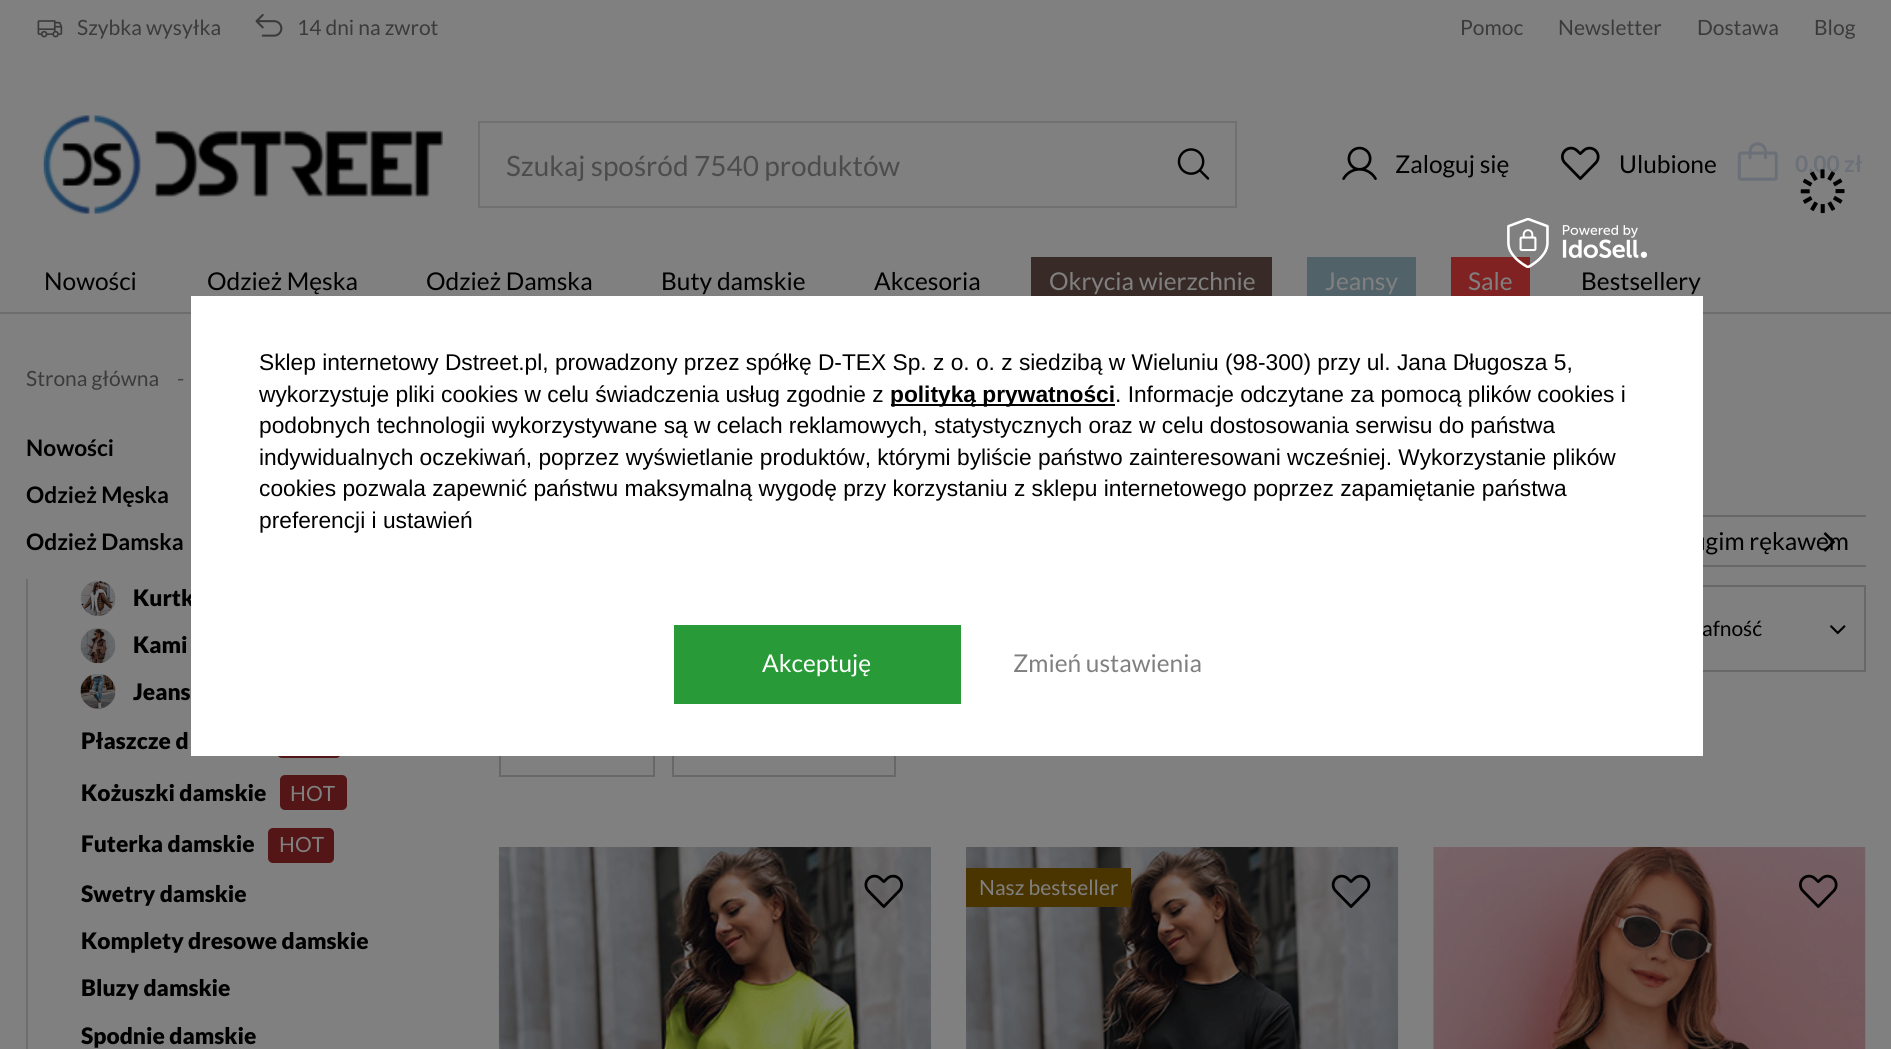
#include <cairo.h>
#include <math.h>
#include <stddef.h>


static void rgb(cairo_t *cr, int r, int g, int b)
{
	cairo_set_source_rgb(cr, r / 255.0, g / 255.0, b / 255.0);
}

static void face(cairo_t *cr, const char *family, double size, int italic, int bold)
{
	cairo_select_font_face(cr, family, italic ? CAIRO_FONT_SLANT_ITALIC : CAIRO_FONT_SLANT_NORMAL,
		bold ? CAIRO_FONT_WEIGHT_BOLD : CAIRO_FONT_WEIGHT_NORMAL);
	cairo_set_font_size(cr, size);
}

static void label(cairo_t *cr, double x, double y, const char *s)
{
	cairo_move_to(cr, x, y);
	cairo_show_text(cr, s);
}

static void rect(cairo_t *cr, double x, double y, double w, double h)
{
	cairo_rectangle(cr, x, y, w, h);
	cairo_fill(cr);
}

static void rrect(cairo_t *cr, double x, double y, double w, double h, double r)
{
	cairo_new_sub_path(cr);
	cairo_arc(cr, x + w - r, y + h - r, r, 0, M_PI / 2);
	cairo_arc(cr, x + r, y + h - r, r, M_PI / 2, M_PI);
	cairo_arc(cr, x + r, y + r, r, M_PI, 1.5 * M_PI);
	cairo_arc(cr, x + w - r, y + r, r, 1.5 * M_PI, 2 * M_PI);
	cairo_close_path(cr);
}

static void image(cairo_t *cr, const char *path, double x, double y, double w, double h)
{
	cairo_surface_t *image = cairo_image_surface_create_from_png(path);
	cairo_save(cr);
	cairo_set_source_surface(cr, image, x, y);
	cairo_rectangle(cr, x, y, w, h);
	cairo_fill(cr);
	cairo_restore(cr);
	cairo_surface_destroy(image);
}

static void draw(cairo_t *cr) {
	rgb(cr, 128, 128, 128);
	cairo_paint(cr);
	image(cr, "image0.png", 37, 20, 26, 18);
	face(cr, "Lato", 21, 0, 0);
	rgb(cr, 59, 59, 59);
	label(cr, 77, 35, "Szybka wysyłka");
	image(cr, "image1.png", 255, 14, 28, 23);
	label(cr, 297, 35, "14 dni na zwrot");
	label(cr, 1460, 35, "Pomoc");
	label(cr, 1558, 35, "Newsletter");
	label(cr, 1697, 35, "Dostawa");
	label(cr, 1814, 35, "Blog");
	image(cr, "image2.png", 43, 115, 400, 99);
	cairo_rectangle(cr, 479, 122, 757, 85);
	rgb(cr, 112, 112, 112);
	cairo_stroke(cr);
	face(cr, "Lato", 28, 0, 0);
	rgb(cr, 76, 76, 76);
	label(cr, 506, 176, "Szukaj spośród 7540 produktów");
	image(cr, "image3.png", 1177, 148, 33, 32);
	image(cr, "image4.png", 1342, 146, 35, 34);
	face(cr, "Lato", 24.5, 0, 0);
	rgb(cr, 0, 0, 0);
	label(cr, 1395, 173, "Zaloguj się");
	image(cr, "image5.png", 1561, 146, 39, 34);
	label(cr, 1619, 173, "Ulubione");
	image(cr, "image6.png", 1737, 142, 41, 39);
	face(cr, "Lato", 22.75, 0, 1);
	rgb(cr, 108, 112, 120);
	label(cr, 1795, 172, "0,00 zł");
	image(cr, "image7.png", 1800, 169, 45, 45);
	face(cr, "Lato", 24.5, 0, 0);
	rgb(cr, 0, 0, 0);
	label(cr, 44, 290, "Nowości");
	label(cr, 207, 290, "Odzież Męska");
	label(cr, 426, 290, "Odzież Damska");
	label(cr, 661, 290, "Buty damskie");
	label(cr, 874, 290, "Akcesoria");
	rgb(cr, 56, 42, 38);
	rect(cr, 1031, 257, 241, 39);
	rgb(cr, 128, 128, 128);
	label(cr, 1049, 290, "Okrycia wierzchnie");
	rgb(cr, 82, 98, 105);
	rect(cr, 1307, 257, 109, 39);
	rgb(cr, 128, 128, 128);
	label(cr, 1325, 290, "Jeansy");
	rgb(cr, 128, 34, 34);
	rect(cr, 1451, 257, 79, 39);
	rgb(cr, 128, 128, 128);
	label(cr, 1468, 290, "Sale");
	rgb(cr, 0, 0, 0);
	label(cr, 1581, 290, "Bestsellery");
	rgb(cr, 109, 109, 109);
	rect(cr, 0, 312, 1891, 2);
	face(cr, "Lato", 21, 0, 0);
	rgb(cr, 59, 59, 59);
	label(cr, 26, 386, "Strona główna");
	rgb(cr, 70, 70, 70);
	label(cr, 177, 386, "-");
	face(cr, "Lato", 22.75, 0, 1);
	rgb(cr, 0, 0, 0);
	label(cr, 26, 456, "Nowości");
	label(cr, 26, 503, "Odzież Męska");
	label(cr, 26, 550, "Odzież Damska");
	rgb(cr, 109, 109, 109);
	rect(cr, 26, 579, 2, 470);
	image(cr, "image8.png", 80, 581, 36, 35);
	face(cr, "Lato Black", 22.75, 0, 0);
	rgb(cr, 0, 0, 0);
	label(cr, 133, 606, "Kurtk");
	image(cr, "image9.png", 80, 628, 36, 36);
	label(cr, 133, 653, "Kami");
	image(cr, "image10.png", 80, 674, 36, 35);
	label(cr, 133, 700, "Jeans");
	label(cr, 81, 749, "Płaszcze d");
	rgb(cr, 83, 21, 21);
	rrect(cr, 277, 725, 64, 33, 5);
	cairo_fill(cr);
	rgb(cr, 0, 0, 0);
	label(cr, 81, 801, "Kożuszki damskie");
	rgb(cr, 83, 21, 21);
	rrect(cr, 280, 775, 67, 35, 5);
	cairo_fill(cr);
	face(cr, "Lato", 21, 0, 0);
	rgb(cr, 128, 128, 128);
	label(cr, 290, 801, "HOT");
	face(cr, "Lato Black", 22.75, 0, 0);
	rgb(cr, 0, 0, 0);
	label(cr, 81, 852, "Futerka damskie");
	rgb(cr, 83, 21, 21);
	rrect(cr, 268, 828, 66, 35, 5);
	cairo_fill(cr);
	face(cr, "Lato", 21, 0, 0);
	rgb(cr, 128, 128, 128);
	label(cr, 279, 852, "HOT");
	face(cr, "Lato Black", 22.75, 0, 0);
	rgb(cr, 0, 0, 0);
	label(cr, 81, 902, "Swetry damskie");
	label(cr, 81, 949, "Komplety dresowe damskie");
	label(cr, 81, 996, "Bluzy damskie");
	label(cr, 81, 1044, "Spodnie damskie");
	cairo_save(cr);
	cairo_rectangle(cr, 499, 515, 1367, 52);
	cairo_clip(cr);
	cairo_rectangle(cr, 1566, 516, 302, 50);
	rgb(cr, 104, 104, 104);
	cairo_stroke(cr);
	cairo_restore(cr);
	face(cr, "Lato", 24.5, 0, 0);
	label(cr, 1692, 550, "ugim rękawem");
	image(cr, "image11.png", 1823, 532, 13, 20);
	cairo_rectangle(cr, 1569, 586, 296, 85);
	rgb(cr, 104, 104, 104);
	cairo_stroke(cr);
	face(cr, "Lato", 21, 0, 0);
	rgb(cr, 0, 0, 0);
	label(cr, 1702, 636, "afność");
	image(cr, "image12.png", 1830, 625, 16, 10);
	cairo_rectangle(cr, 500, 691, 154, 85);
	rgb(cr, 104, 104, 104);
	cairo_stroke(cr);
	cairo_rectangle(cr, 673, 691, 222, 85);
	cairo_stroke(cr);
	image(cr, "image13.png", 498, 847, 433, 202);
	image(cr, "image14.png", 864, 874, 40, 34);
	image(cr, "image15.png", 966, 847, 433, 202);
	rgb(cr, 74, 52, 0);
	rect(cr, 966, 868, 165, 39);
	rgb(cr, 128, 128, 128);
	label(cr, 979, 895, "Nasz bestseller");
	image(cr, "image16.png", 1331, 874, 40, 34);
	image(cr, "image17.png", 1433, 847, 433, 202);
	image(cr, "image18.png", 1799, 874, 39, 34);
	rgb(cr, 255, 255, 255);
	rect(cr, 191, 296, 1512, 460);
	image(cr, "image19.png", 1507, 218, 140, 50);
	face(cr, "Liberation Sans", 22.75, 0, 0);
	rgb(cr, 0, 0, 0);
	label(cr, 259, 370, "Sklep internetowy Dstreet.pl, prowadzony przez spółkę D-TEX Sp. z o. o. z siedzibą w Wieluniu (98-300) przy ul. Jana Długosza 5,");
	label(cr, 259, 402, "wykorzystuje pliki cookies w celu świadczenia usług zgodnie z");
	rect(cr, 891, 404, 224, 2);
	face(cr, "Liberation Sans", 22.75, 0, 1);
	label(cr, 890, 402, "polityką prywatności");
	face(cr, "Liberation Sans", 22.75, 0, 0);
	label(cr, 1115, 402, ". Informacje odczytane za pomocą plików cookies i");
	label(cr, 259, 433, "podobnych technologii wykorzystywane są w celach reklamowych, statystycznych oraz w celu dostosowania serwisu do państwa");
	label(cr, 259, 465, "indywidualnych oczekiwań, poprzez wyświetlanie produktów, którymi byliście państwo zainteresowani wcześniej. Wykorzystanie plików");
	label(cr, 259, 496, "cookies pozwala zapewnić państwu maksymalną wygodę przy korzystaniu z sklepu internetowego poprzez zapamiętanie państwa");
	label(cr, 259, 528, "preferencji i ustawień");
	rgb(cr, 40, 155, 56);
	rect(cr, 674, 625, 287, 79);
	face(cr, "Lato", 24.5, 0, 0);
	rgb(cr, 255, 255, 255);
	label(cr, 762, 672, "Akceptuję");
	rgb(cr, 128, 128, 128);
	label(cr, 1013, 672, "Zmień ustawienia");
}

int main(void) {
	cairo_surface_t *surface = cairo_image_surface_create(CAIRO_FORMAT_RGB24, 1891, 1049);
	cairo_t *cr = cairo_create(surface);
	cairo_font_options_t *options = cairo_font_options_create();
	cairo_font_options_set_hint_metrics(options, CAIRO_HINT_METRICS_OFF);
	cairo_font_options_set_hint_style(options, CAIRO_HINT_STYLE_NONE);
	cairo_set_font_options(cr, options);
	cairo_set_miter_limit(cr, 4);
	draw(cr);
	cairo_surface_write_to_png(surface, "render.png");
	cairo_font_options_destroy(options);
	cairo_destroy(cr);
	cairo_surface_destroy(surface);
	return 0;
}
